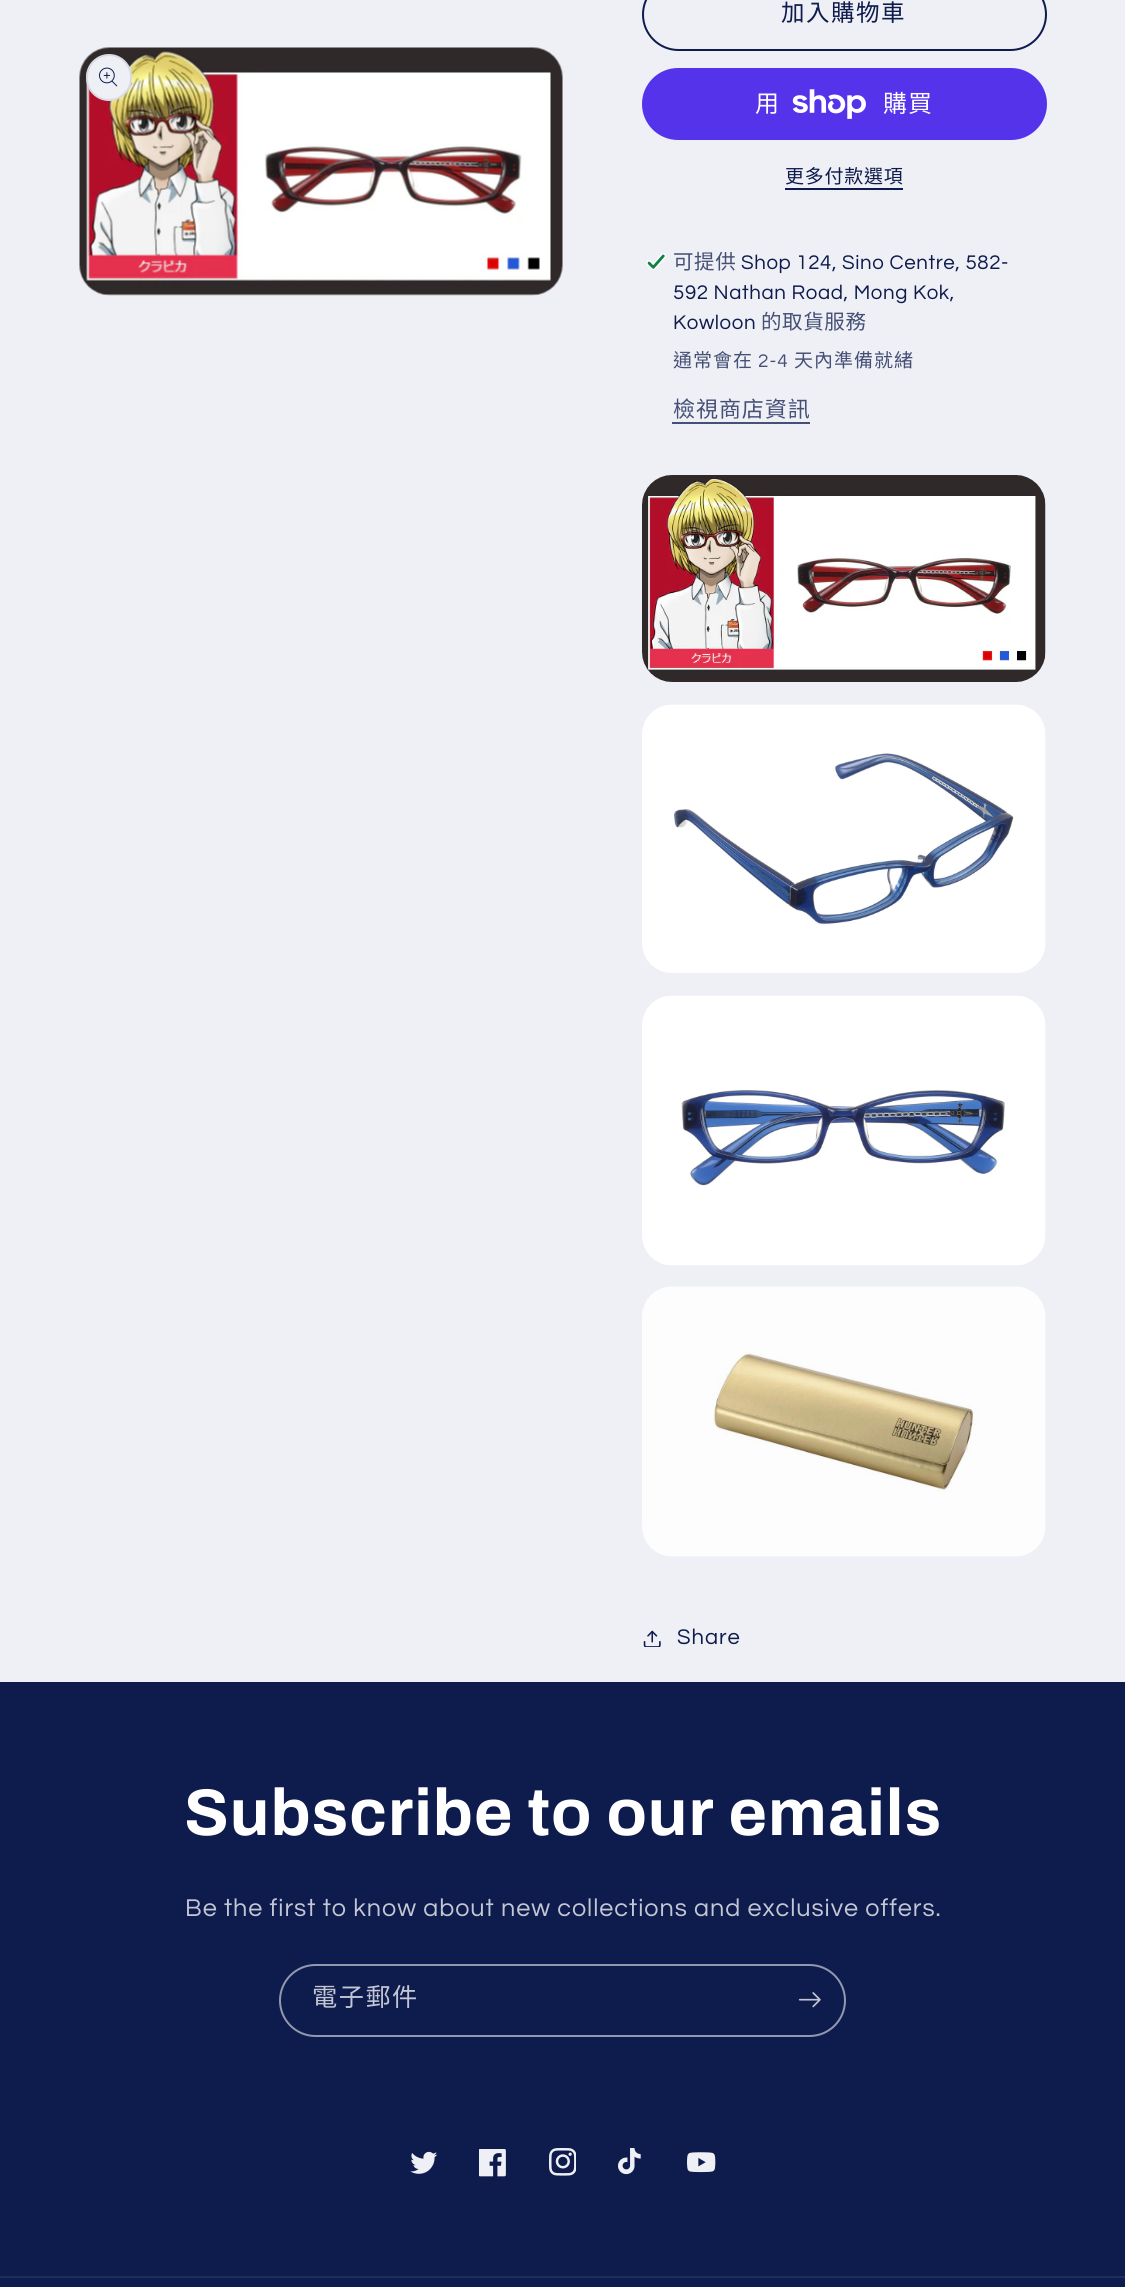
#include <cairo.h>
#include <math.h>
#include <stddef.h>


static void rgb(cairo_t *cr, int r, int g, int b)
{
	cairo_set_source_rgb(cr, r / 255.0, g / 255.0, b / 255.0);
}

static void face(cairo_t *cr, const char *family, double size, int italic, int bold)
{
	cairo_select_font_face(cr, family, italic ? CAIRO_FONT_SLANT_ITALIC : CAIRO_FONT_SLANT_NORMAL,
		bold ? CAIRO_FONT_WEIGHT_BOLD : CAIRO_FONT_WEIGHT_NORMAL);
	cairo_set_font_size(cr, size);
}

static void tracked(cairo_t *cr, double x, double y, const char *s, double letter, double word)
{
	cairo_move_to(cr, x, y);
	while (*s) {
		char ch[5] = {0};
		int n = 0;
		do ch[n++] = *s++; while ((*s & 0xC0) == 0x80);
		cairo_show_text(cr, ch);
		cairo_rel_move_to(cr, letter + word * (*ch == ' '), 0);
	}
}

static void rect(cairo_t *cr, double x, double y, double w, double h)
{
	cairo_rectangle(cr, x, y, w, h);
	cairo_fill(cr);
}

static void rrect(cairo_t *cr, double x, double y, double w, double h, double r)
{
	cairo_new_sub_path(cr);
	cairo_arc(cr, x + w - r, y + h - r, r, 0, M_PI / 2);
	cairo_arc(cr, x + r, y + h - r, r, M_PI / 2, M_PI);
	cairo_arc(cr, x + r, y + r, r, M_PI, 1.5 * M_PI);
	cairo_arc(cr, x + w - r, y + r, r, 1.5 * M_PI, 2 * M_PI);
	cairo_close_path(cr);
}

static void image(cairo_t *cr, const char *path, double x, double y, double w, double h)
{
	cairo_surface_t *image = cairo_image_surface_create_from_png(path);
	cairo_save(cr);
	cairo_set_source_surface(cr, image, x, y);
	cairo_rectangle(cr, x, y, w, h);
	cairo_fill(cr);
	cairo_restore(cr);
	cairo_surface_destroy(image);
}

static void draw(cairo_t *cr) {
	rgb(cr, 239, 240, 245);
	cairo_paint(cr);
	image(cr, "image0.png", 79, 47, 484, 249);
	rgb(cr, 239, 240, 245);
	rrect(cr, 86, 54, 46, 47, 23);
	cairo_fill(cr);
	rrect(cr, 87, 55, 44, 45, 22);
	cairo_set_source_rgba(cr, 0.055, 0.106, 0.302, 0.1);
	cairo_stroke(cr);
	image(cr, "image1.png", 99, 67, 19, 20);
	rrect(cr, 643, -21, 403, 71, 35.5);
	rgb(cr, 14, 27, 77);
	cairo_stroke(cr);
	face(cr, "Noto Sans CJK TC", 23.5, 0, 0);
	tracked(cr, 781, 21, "加入購物車", 1.5, 0);
	rgb(cr, 84, 51, 235);
	rrect(cr, 642, 68, 405, 72, 36);
	cairo_fill(cr);
	face(cr, "Noto Sans CJK TC", 24, 0, 0);
	rgb(cr, 255, 255, 255);
	tracked(cr, 755, 112, "用", 0.95, 0);
	image(cr, "image2.png", 792, 89, 74, 30);
	tracked(cr, 883, 112, "購買", 0.95, 0);
	face(cr, "Noto Sans CJK TC", 19, 0, 0);
	rgb(cr, 14, 27, 77);
	tracked(cr, 785, 183, "更多付款選項", 0.75, 0);
	rect(cr, 785, 188, 118, 2);
	image(cr, "image3.png", 646, 253, 20, 17);
	face(cr, "Noto Sans CJK TC", 20.5, 0, 0);
	rgb(cr, 70, 80, 119);
	tracked(cr, 673, 269, "可提供", 0.6, 0);
	face(cr, "Questrial", 20.5, 0, 0);
	rgb(cr, 14, 27, 77);
	tracked(cr, 741, 269, "Shop 124, Sino Centre, 582-", 0.6, 0);
	tracked(cr, 673, 299, "592 Nathan Road, Mong Kok,", 0.6, 0);
	tracked(cr, 673, 329, "Kowloon", 0.6, 0);
	face(cr, "Noto Sans CJK TC", 20.5, 0, 0);
	rgb(cr, 70, 80, 119);
	tracked(cr, 761, 329, "的取貨服務", 0.6, 0);
	face(cr, "Noto Sans CJK TC", 19, 0, 0);
	tracked(cr, 673, 367, "通常會在", 1, 0);
	face(cr, "Questrial", 19, 0, 0);
	tracked(cr, 758, 367, "2-4", 1, 0);
	face(cr, "Noto Sans CJK TC", 19, 0, 0);
	tracked(cr, 794, 367, "天內準備就緒", 1, 0);
	face(cr, "Noto Sans CJK TC", 22, 0, 0);
	tracked(cr, 673, 417, "檢視商店資訊", 0.95, 0);
	rect(cr, 672, 422, 138, 2);
	image(cr, "image4.png", 642, 475, 404, 207);
	image(cr, "image5.png", 642, 704, 404, 269);
	image(cr, "image6.png", 642, 995, 404, 271);
	image(cr, "image7.png", 642, 1286, 404, 271);
	image(cr, "image8.png", 643, 1630, 18, 17);
	face(cr, "Questrial", 22, 0, 0);
	rgb(cr, 14, 27, 77);
	tracked(cr, 677, 1644, "Share", 0.95, 0);
	rect(cr, 0, 1682, 1125, 605);
	face(cr, "Archivo", 66, 0, 1);
	rgb(cr, 255, 255, 255);
	tracked(cr, 184, 1835, "Subscribe to our emails", 1, 0);
	face(cr, "Questrial", 25.2, 0, 0);
	rgb(cr, 195, 198, 211);
	tracked(cr, 185, 1916, "Be the first to know about new collections and exclusive offers.", 0.95, 0);
	rrect(cr, 280, 1965, 565, 71, 35.5);
	rgb(cr, 147, 152, 175);
	cairo_stroke(cr);
	face(cr, "Noto Sans CJK TC", 25.2, 0, 0);
	rgb(cr, 195, 198, 211);
	tracked(cr, 312, 2006, "電子郵件", 1.5, 0);
	image(cr, "image9.png", 798, 1992, 23, 16);
	image(cr, "image10.png", 410, 2151, 28, 23);
	image(cr, "image11.png", 479, 2149, 27, 28);
	image(cr, "image12.png", 549, 2148, 27, 28);
	image(cr, "image13.png", 618, 2148, 23, 27);
	image(cr, "image14.png", 687, 2152, 29, 21);
	rgb(cr, 32, 44, 90);
	rect(cr, 0, 2276, 1125, 2);
}

int main(void) {
	cairo_surface_t *surface = cairo_image_surface_create(CAIRO_FORMAT_RGB24, 1125, 2287);
	cairo_t *cr = cairo_create(surface);
	cairo_font_options_t *options = cairo_font_options_create();
	cairo_font_options_set_hint_metrics(options, CAIRO_HINT_METRICS_OFF);
	cairo_font_options_set_hint_style(options, CAIRO_HINT_STYLE_NONE);
	cairo_set_font_options(cr, options);
	cairo_set_miter_limit(cr, 4);
	draw(cr);
	cairo_surface_write_to_png(surface, "render.png");
	cairo_font_options_destroy(options);
	cairo_destroy(cr);
	cairo_surface_destroy(surface);
	return 0;
}
